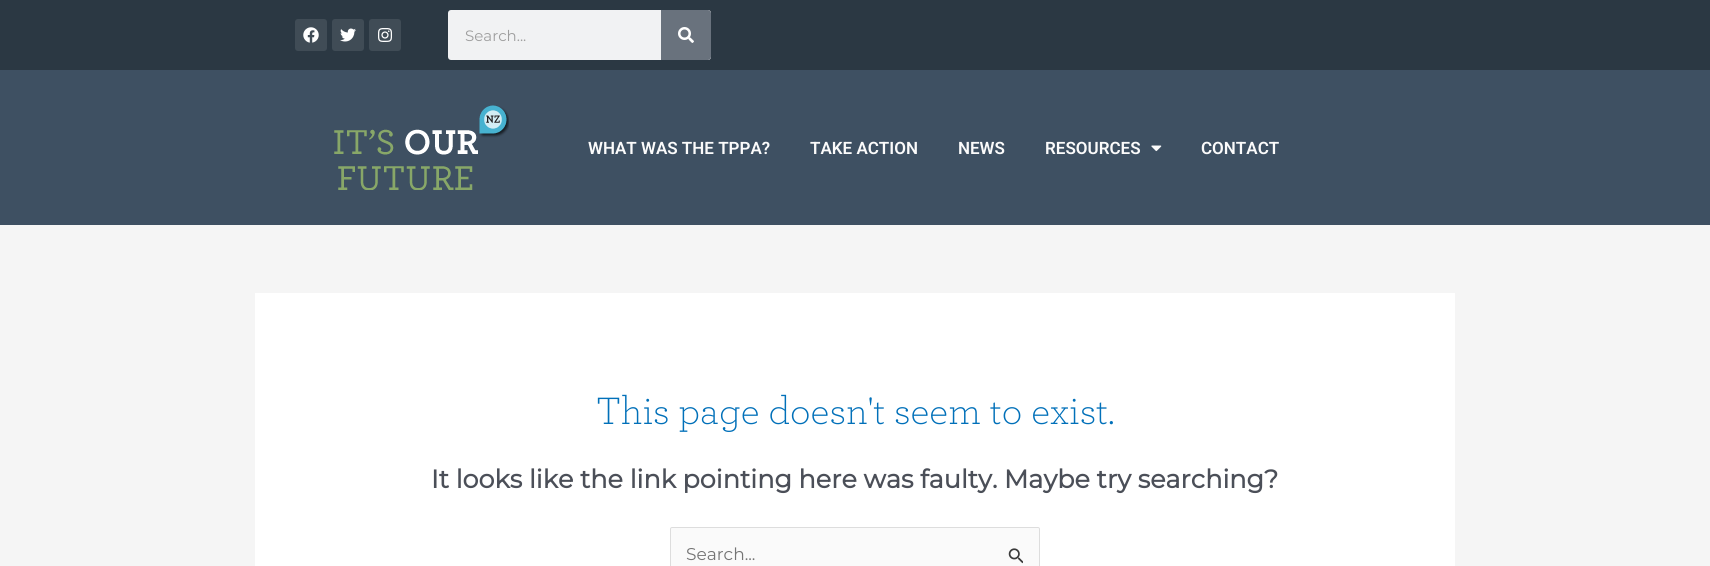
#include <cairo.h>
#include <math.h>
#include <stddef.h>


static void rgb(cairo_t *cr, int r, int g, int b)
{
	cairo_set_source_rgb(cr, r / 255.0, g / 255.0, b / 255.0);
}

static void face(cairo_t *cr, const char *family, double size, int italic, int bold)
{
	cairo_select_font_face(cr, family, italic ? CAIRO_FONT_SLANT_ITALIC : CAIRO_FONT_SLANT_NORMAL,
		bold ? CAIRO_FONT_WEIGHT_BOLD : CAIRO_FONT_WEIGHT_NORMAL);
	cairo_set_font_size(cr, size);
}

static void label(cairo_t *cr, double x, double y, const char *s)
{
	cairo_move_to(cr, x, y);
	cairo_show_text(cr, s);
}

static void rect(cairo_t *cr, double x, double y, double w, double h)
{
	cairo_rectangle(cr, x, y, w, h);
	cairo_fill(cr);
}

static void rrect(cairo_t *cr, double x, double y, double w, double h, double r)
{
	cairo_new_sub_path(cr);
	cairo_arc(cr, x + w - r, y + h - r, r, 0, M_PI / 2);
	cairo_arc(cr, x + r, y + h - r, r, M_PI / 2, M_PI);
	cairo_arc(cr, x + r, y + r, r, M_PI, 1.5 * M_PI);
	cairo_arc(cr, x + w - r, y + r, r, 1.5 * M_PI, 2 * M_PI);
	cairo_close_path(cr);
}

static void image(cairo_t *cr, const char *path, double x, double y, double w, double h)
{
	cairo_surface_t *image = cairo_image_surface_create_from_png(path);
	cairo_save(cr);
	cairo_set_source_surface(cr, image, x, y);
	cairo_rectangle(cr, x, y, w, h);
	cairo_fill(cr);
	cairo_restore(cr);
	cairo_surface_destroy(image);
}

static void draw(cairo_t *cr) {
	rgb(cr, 245, 245, 245);
	cairo_paint(cr);
	rgb(cr, 43, 56, 67);
	rect(cr, 0, 0, 1710, 70);
	rgb(cr, 64, 76, 86);
	rrect(cr, 295, 19, 32, 32, 3);
	cairo_fill(cr);
	image(cr, "image0.png", 303, 27, 16, 16);
	rrect(cr, 332, 19, 32, 32, 3);
	cairo_fill(cr);
	image(cr, "image1.png", 340, 28, 16, 14);
	rrect(cr, 369, 19, 32, 32, 3);
	cairo_fill(cr);
	image(cr, "image2.png", 378, 28, 14, 14);
	rgb(cr, 241, 242, 243);
	rrect(cr, 448, 10, 263, 50, 3);
	cairo_fill(cr);
	face(cr, "Montserrat Thin", 15, 0, 0);
	rgb(cr, 158, 158, 158);
	label(cr, 465, 41, "Search...");
	rgb(cr, 105, 114, 125);
	cairo_new_path(cr);
	cairo_move_to(cr, 661, 10);
	cairo_line_to(cr, 708, 10);
	cairo_curve_to(cr, 709.5, 10, 711, 11.5, 711, 13);
	cairo_line_to(cr, 711, 57);
	cairo_curve_to(cr, 711, 58.5, 709.5, 60, 708, 60);
	cairo_line_to(cr, 661, 60);
	cairo_close_path(cr);
	cairo_fill(cr);
	image(cr, "image3.png", 678, 27, 16, 16);
	rgb(cr, 62, 80, 98);
	rect(cr, 0, 70, 1710, 155);
	image(cr, "image4.png", 334, 105, 175, 85);
	face(cr, "Roboto SemiBold", 17, 0, 0);
	rgb(cr, 251, 251, 251);
	label(cr, 588, 154, "WHAT WAS THE TPPA?");
	label(cr, 810, 154, "TAKE ACTION");
	label(cr, 958, 154, "NEWS");
	label(cr, 1045, 154, "RESOURCES");
	image(cr, "image5.png", 1151, 145, 11, 7);
	label(cr, 1201, 154, "CONTACT");
	rgb(cr, 255, 255, 255);
	rect(cr, 255, 293, 1200, 273);
	face(cr, "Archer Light", 40, 0, 0);
	rgb(cr, 1, 112, 185);
	label(cr, 596, 424, "This page doesn't seem to exist.");
	face(cr, "Montserrat", 25.5, 0, 1);
	rgb(cr, 75, 79, 88);
	label(cr, 431, 488, "It looks like the link pointing here was faulty. Maybe try searching?");
	rgb(cr, 250, 250, 250);
	rrect(cr, 670.5, 527.5, 369, 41, 1.5);
	cairo_fill_preserve(cr);
	rgb(cr, 221, 221, 221);
	cairo_set_line_width(cr, 1);
	cairo_stroke(cr);
	face(cr, "Montserrat Thin", 17, 0, 0);
	rgb(cr, 117, 117, 117);
	label(cr, 686, 560, "Search...");
	image(cr, "image6.png", 1008, 548, 15, 16);
}

int main(void) {
	cairo_surface_t *surface = cairo_image_surface_create(CAIRO_FORMAT_RGB24, 1710, 566);
	cairo_t *cr = cairo_create(surface);
	cairo_font_options_t *options = cairo_font_options_create();
	cairo_font_options_set_hint_metrics(options, CAIRO_HINT_METRICS_OFF);
	cairo_font_options_set_hint_style(options, CAIRO_HINT_STYLE_NONE);
	cairo_set_font_options(cr, options);
	cairo_set_miter_limit(cr, 4);
	draw(cr);
	cairo_surface_write_to_png(surface, "render.png");
	cairo_font_options_destroy(options);
	cairo_destroy(cr);
	cairo_surface_destroy(surface);
	return 0;
}
